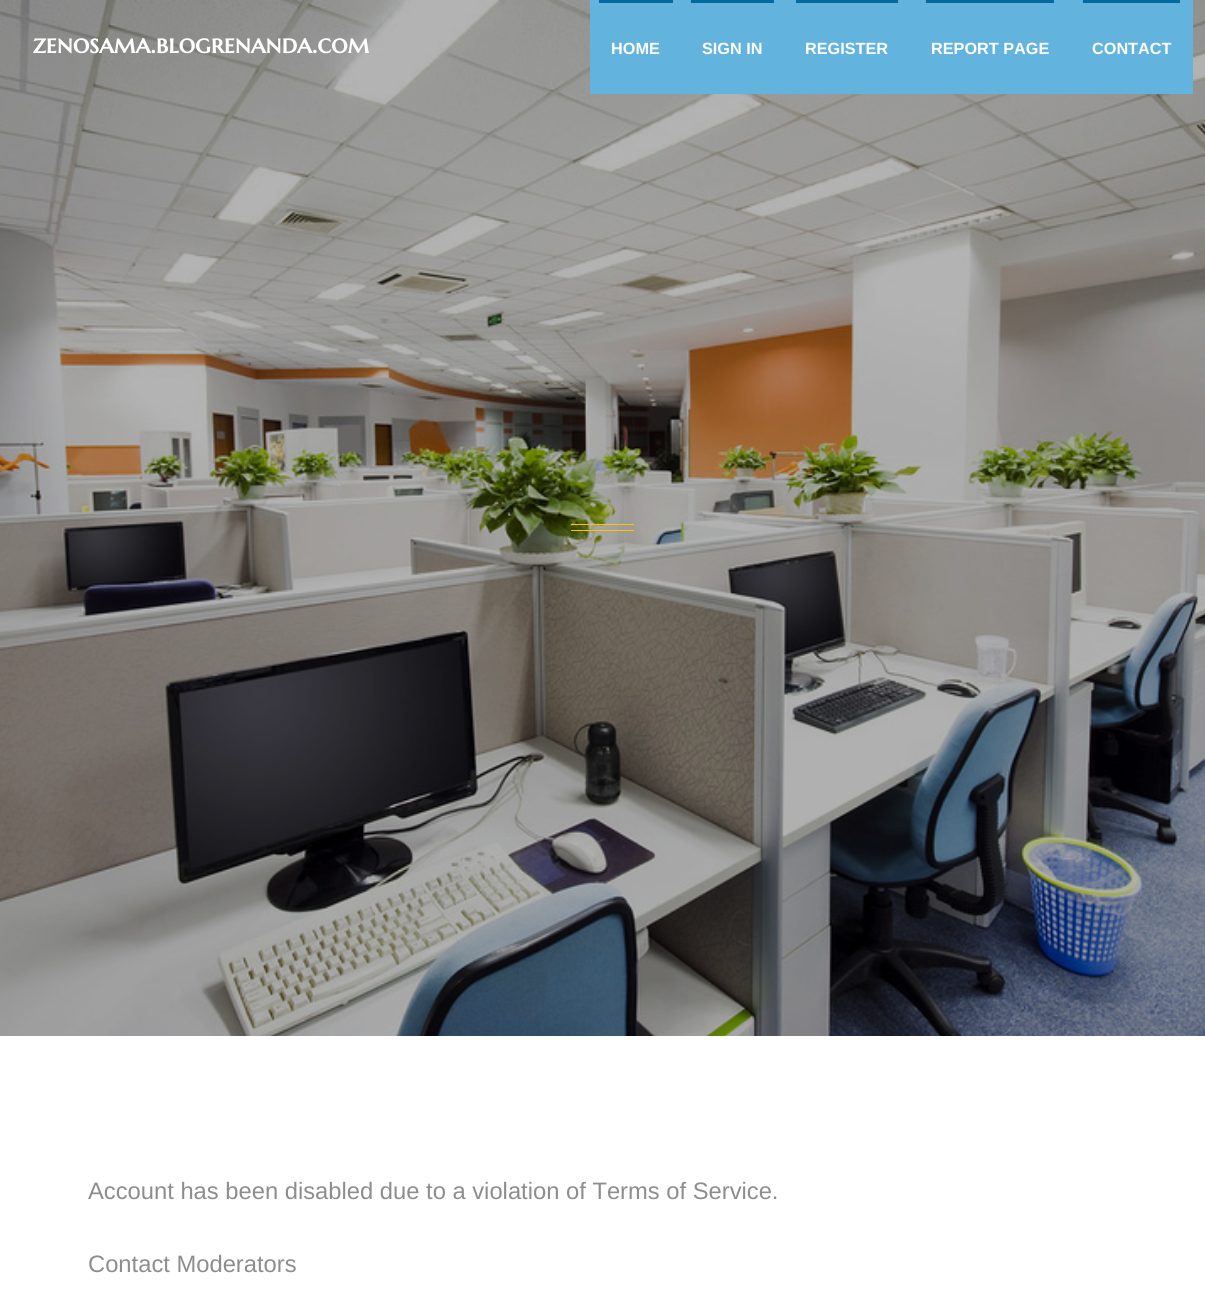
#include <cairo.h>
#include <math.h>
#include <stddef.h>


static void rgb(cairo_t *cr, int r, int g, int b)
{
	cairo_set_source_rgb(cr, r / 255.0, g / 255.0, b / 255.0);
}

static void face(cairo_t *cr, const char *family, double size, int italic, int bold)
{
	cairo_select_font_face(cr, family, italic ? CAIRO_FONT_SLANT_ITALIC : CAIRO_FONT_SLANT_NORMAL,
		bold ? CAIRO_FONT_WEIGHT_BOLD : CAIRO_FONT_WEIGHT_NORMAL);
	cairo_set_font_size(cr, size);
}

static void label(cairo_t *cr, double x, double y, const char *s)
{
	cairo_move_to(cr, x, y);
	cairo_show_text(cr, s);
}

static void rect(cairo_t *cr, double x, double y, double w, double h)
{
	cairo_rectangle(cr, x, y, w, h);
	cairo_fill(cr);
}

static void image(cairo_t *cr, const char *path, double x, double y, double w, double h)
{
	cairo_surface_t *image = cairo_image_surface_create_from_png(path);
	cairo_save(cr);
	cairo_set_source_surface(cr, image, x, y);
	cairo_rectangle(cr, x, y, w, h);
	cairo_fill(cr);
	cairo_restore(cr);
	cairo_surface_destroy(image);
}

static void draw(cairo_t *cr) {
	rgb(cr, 255, 255, 255);
	cairo_paint(cr);
	image(cr, "image0.png", 0, 0, 1205, 1036);
	face(cr, "Marcellus SC", 26.25, 0, 1);
	rgb(cr, 255, 255, 255);
	label(cr, 33, 53, "zenosama.blogrenanda.com");
	rgb(cr, 98, 180, 223);
	rect(cr, 590, 0, 603, 94);
	rgb(cr, 4, 105, 158);
	rect(cr, 599, 0, 74, 3);
	face(cr, "Liberation Sans", 16.25, 0, 1);
	rgb(cr, 255, 255, 255);
	label(cr, 611, 54, "HOME");
	rgb(cr, 4, 105, 158);
	rect(cr, 691, 0, 83, 3);
	rgb(cr, 255, 255, 255);
	label(cr, 702, 54, "SIGN IN");
	rgb(cr, 4, 105, 158);
	rect(cr, 796, 0, 102, 3);
	rgb(cr, 255, 255, 255);
	label(cr, 805, 54, "REGISTER");
	rgb(cr, 4, 105, 158);
	rect(cr, 926, 0, 128, 3);
	rgb(cr, 255, 255, 255);
	label(cr, 931, 54, "REPORT PAGE");
	rgb(cr, 4, 105, 158);
	rect(cr, 1083, 0, 97, 3);
	rgb(cr, 255, 255, 255);
	label(cr, 1092, 54, "CONTACT");
	rgb(cr, 255, 196, 0);
	rect(cr, 571, 524, 63, 1);
	rect(cr, 571, 530, 63, 1);
	face(cr, "Liberation Sans", 23.75, 0, 0);
	rgb(cr, 141, 141, 141);
	label(cr, 88, 1199, "Account has been disabled due to a violation of Terms of Service.");
	label(cr, 88, 1272, "Contact Moderators");
}

int main(void) {
	cairo_surface_t *surface = cairo_image_surface_create(CAIRO_FORMAT_RGB24, 1205, 1295);
	cairo_t *cr = cairo_create(surface);
	cairo_font_options_t *options = cairo_font_options_create();
	cairo_font_options_set_hint_metrics(options, CAIRO_HINT_METRICS_OFF);
	cairo_font_options_set_hint_style(options, CAIRO_HINT_STYLE_NONE);
	cairo_set_font_options(cr, options);
	cairo_set_miter_limit(cr, 4);
	draw(cr);
	cairo_surface_write_to_png(surface, "render.png");
	cairo_font_options_destroy(options);
	cairo_destroy(cr);
	cairo_surface_destroy(surface);
	return 0;
}
